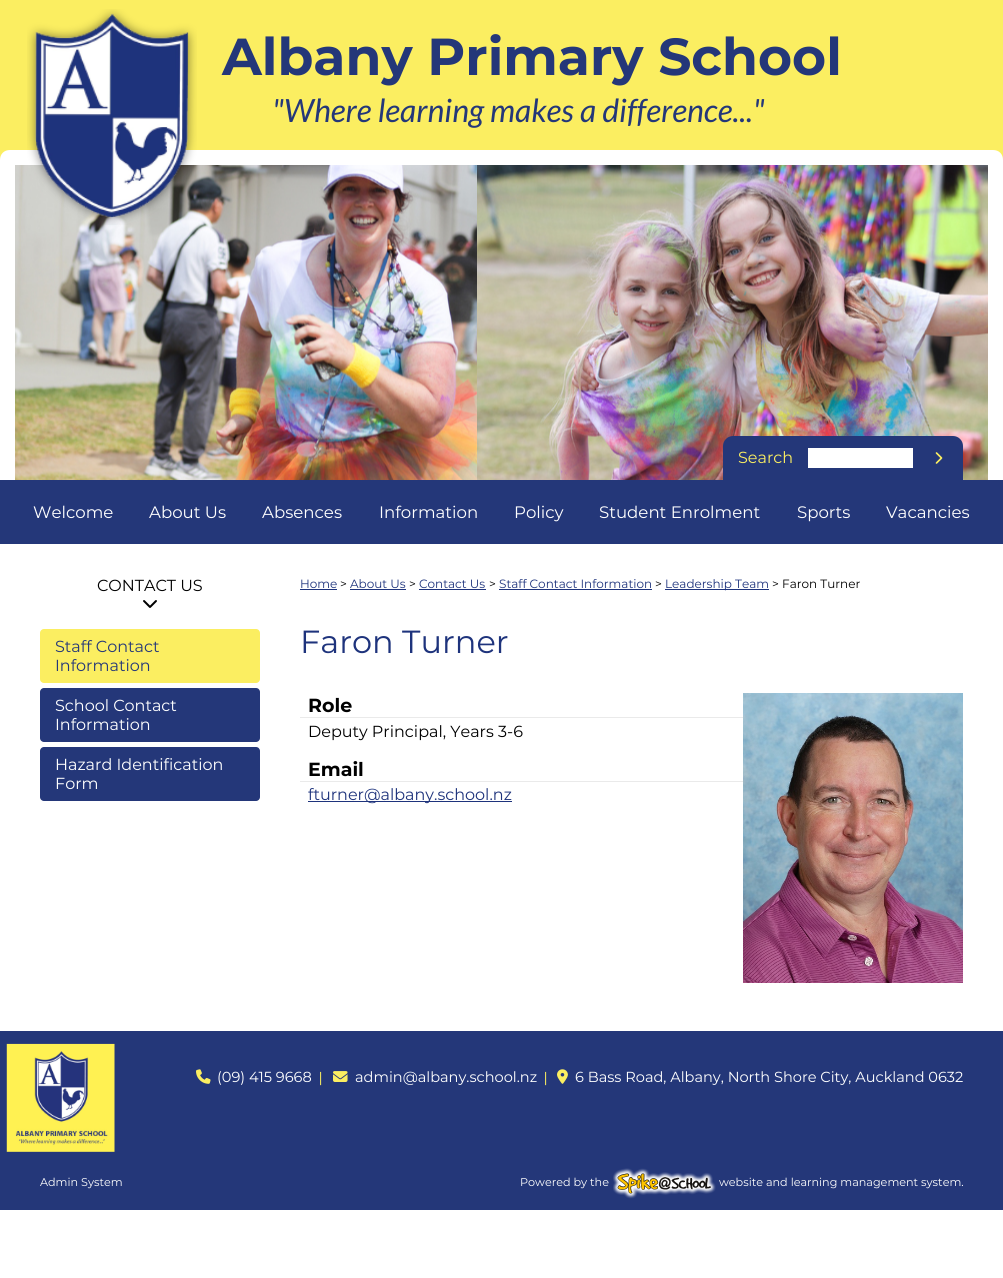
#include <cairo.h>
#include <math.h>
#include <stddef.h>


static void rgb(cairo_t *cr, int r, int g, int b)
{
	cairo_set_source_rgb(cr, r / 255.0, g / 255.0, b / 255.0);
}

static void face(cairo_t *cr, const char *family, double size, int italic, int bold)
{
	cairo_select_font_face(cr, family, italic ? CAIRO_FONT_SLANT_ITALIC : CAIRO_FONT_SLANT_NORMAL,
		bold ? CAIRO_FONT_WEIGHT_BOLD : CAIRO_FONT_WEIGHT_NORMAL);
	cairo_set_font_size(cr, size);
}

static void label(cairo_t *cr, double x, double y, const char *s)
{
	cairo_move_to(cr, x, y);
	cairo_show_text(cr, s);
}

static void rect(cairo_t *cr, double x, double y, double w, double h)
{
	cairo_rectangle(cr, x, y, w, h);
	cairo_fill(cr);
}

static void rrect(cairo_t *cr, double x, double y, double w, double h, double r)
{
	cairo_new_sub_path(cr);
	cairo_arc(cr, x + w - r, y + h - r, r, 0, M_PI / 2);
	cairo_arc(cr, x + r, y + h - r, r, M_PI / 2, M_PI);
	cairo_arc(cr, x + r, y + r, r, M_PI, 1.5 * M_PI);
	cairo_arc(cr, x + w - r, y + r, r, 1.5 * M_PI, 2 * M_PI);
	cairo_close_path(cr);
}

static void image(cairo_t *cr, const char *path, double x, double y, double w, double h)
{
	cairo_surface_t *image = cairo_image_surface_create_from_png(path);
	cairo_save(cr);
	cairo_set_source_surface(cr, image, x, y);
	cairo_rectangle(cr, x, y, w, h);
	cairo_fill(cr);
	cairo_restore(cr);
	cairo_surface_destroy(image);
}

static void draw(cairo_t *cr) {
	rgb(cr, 255, 255, 255);
	cairo_paint(cr);
	rgb(cr, 251, 238, 97);
	rect(cr, 0, 0, 1003, 160);
	rgb(cr, 255, 255, 255);
	cairo_set_fill_rule(cr, CAIRO_FILL_RULE_EVEN_ODD);
	cairo_new_path(cr);
	cairo_move_to(cr, 10, 150);
	cairo_line_to(cr, 993, 150);
	cairo_curve_to(cr, 999, 150, 1003, 154, 1003, 160);
	cairo_line_to(cr, 1003, 480);
	cairo_line_to(cr, 0, 480);
	cairo_line_to(cr, 0, 160);
	cairo_curve_to(cr, 0, 154, 4, 150, 10, 150);
	cairo_close_path(cr);
	cairo_move_to(cr, 15, 165);
	cairo_line_to(cr, 988, 165);
	cairo_line_to(cr, 988, 480);
	cairo_line_to(cr, 15, 480);
	cairo_close_path(cr);
	cairo_fill(cr);
	image(cr, "image1.png", 15, 165, 973, 315);
	image(cr, "image0.png", 27, 9, 170, 216);
	face(cr, "Montserrat", 52, 0, 1);
	rgb(cr, 36, 55, 121);
	label(cr, 222, 75, "Albany Primary School");
	face(cr, "Lato", 32, 1, 0);
	label(cr, 272, 122, "\"Where learning makes a difference...\"");
	cairo_new_path(cr);
	cairo_move_to(cr, 733, 436);
	cairo_line_to(cr, 953, 436);
	cairo_curve_to(cr, 958.5, 436, 963, 440.5, 963, 446);
	cairo_line_to(cr, 963, 480);
	cairo_line_to(cr, 723, 480);
	cairo_line_to(cr, 723, 446);
	cairo_curve_to(cr, 723, 440.5, 727.5, 436, 733, 436);
	cairo_close_path(cr);
	cairo_fill(cr);
	face(cr, "Montserrat", 16, 0, 0);
	rgb(cr, 251, 238, 97);
	label(cr, 738, 463, "Search");
	rgb(cr, 255, 255, 255);
	rect(cr, 808, 448, 105, 20);
	image(cr, "image2.png", 935, 452, 8, 12);
	rgb(cr, 36, 55, 121);
	rect(cr, 0, 480, 1003, 64);
	face(cr, "Montserrat", 16.6, 0, 0);
	rgb(cr, 255, 255, 255);
	label(cr, 33, 518, "Welcome");
	label(cr, 149, 518, "About Us");
	label(cr, 262, 518, "Absences");
	label(cr, 379, 518, "Information");
	label(cr, 514, 518, "Policy");
	label(cr, 599, 518, "Student Enrolment");
	label(cr, 797, 518, "Sports");
	label(cr, 886, 518, "Vacancies");
	face(cr, "Montserrat", 16, 0, 0);
	rgb(cr, 0, 0, 0);
	label(cr, 97, 591, "CONTACT US");
	image(cr, "image3.png", 143, 600, 14, 8);
	rgb(cr, 251, 238, 97);
	rrect(cr, 40, 629, 220, 54, 4);
	cairo_fill(cr);
	rgb(cr, 36, 55, 121);
	label(cr, 55, 652, "Staff Contact");
	label(cr, 55, 671, "Information");
	rrect(cr, 40, 688, 220, 54, 4);
	cairo_fill(cr);
	rgb(cr, 255, 255, 255);
	label(cr, 55, 711, "School Contact");
	label(cr, 55, 730, "Information");
	rgb(cr, 36, 55, 121);
	rrect(cr, 40, 747, 220, 54, 4);
	cairo_fill(cr);
	rgb(cr, 255, 255, 255);
	label(cr, 55, 770, "Hazard Identification");
	label(cr, 55, 789, "Form");
	face(cr, "Montserrat", 12, 0, 0);
	rgb(cr, 30, 51, 124);
	label(cr, 300, 588, "Home");
	rect(cr, 300, 589, 37, 1);
	rgb(cr, 0, 0, 0);
	label(cr, 340, 588, ">");
	rgb(cr, 30, 51, 124);
	label(cr, 350, 588, "About Us");
	rect(cr, 350, 589, 56, 1);
	rgb(cr, 0, 0, 0);
	label(cr, 409, 588, ">");
	rgb(cr, 30, 51, 124);
	label(cr, 419, 588, "Contact Us");
	rect(cr, 419, 589, 67, 1);
	rgb(cr, 0, 0, 0);
	label(cr, 489, 588, ">");
	rgb(cr, 30, 51, 124);
	label(cr, 499, 588, "Staff Contact Information");
	rect(cr, 499, 589, 153, 1);
	rgb(cr, 0, 0, 0);
	label(cr, 655, 588, ">");
	rgb(cr, 30, 51, 124);
	rect(cr, 665, 589, 104, 1);
	label(cr, 665, 588, "Leadership Team");
	rgb(cr, 0, 0, 0);
	label(cr, 772, 588, "> Faron Turner");
	face(cr, "Montserrat", 32, 0, 0);
	rgb(cr, 30, 51, 124);
	label(cr, 300, 653, "Faron Turner");
	rgb(cr, 234, 234, 234);
	rect(cr, 300, 717, 443, 1);
	face(cr, "Montserrat", 19, 0, 1);
	rgb(cr, 0, 0, 0);
	label(cr, 308, 712, "Role");
	image(cr, "image4.png", 743, 693, 220, 290);
	face(cr, "Montserrat", 16, 0, 0);
	label(cr, 308, 737, "Deputy Principal, Years 3-6");
	rgb(cr, 234, 234, 234);
	rect(cr, 300, 781, 443, 1);
	face(cr, "Montserrat", 19, 0, 1);
	rgb(cr, 0, 0, 0);
	label(cr, 308, 776, "Email");
	rgb(cr, 30, 51, 124);
	rect(cr, 308, 801, 204, 1);
	face(cr, "Montserrat", 16, 0, 0);
	label(cr, 308, 800, "fturner@albany.school.nz");
	rgb(cr, 36, 55, 121);
	rect(cr, 0, 1031, 1003, 179);
	image(cr, "image5.png", 6, 1043, 109, 109);
	image(cr, "image6.png", 196, 1069, 15, 15);
	face(cr, "Montserrat", 14.55, 0, 0);
	rgb(cr, 255, 255, 255);
	label(cr, 217, 1082, "(09) 415 9668");
	face(cr, "Liberation Serif", 14.55, 0, 1);
	rgb(cr, 251, 238, 97);
	label(cr, 319, 1082, "|");
	image(cr, "image7.png", 333, 1071, 15, 11);
	face(cr, "Montserrat", 14.55, 0, 0);
	rgb(cr, 255, 255, 255);
	label(cr, 355, 1082, "admin@albany.school.nz");
	face(cr, "Liberation Serif", 14.55, 0, 1);
	rgb(cr, 251, 238, 97);
	label(cr, 544, 1082, "|");
	image(cr, "image8.png", 557, 1069, 11, 15);
	face(cr, "Montserrat", 14.55, 0, 0);
	rgb(cr, 255, 255, 255);
	label(cr, 575, 1082, "6 Bass Road, Albany, North Shore City, Auckland 0632");
	face(cr, "Montserrat", 11.2, 0, 0);
	label(cr, 40, 1186, "Admin System");
	label(cr, 520, 1186, "Powered by the");
	image(cr, "image9.png", 613, 1168, 103, 31);
	label(cr, 719, 1186, "website and learning management system.");
}

int main(void) {
	cairo_surface_t *surface = cairo_image_surface_create(CAIRO_FORMAT_RGB24, 1003, 1278);
	cairo_t *cr = cairo_create(surface);
	cairo_font_options_t *options = cairo_font_options_create();
	cairo_font_options_set_hint_metrics(options, CAIRO_HINT_METRICS_OFF);
	cairo_font_options_set_hint_style(options, CAIRO_HINT_STYLE_NONE);
	cairo_set_font_options(cr, options);
	cairo_set_miter_limit(cr, 4);
	draw(cr);
	cairo_surface_write_to_png(surface, "render.png");
	cairo_font_options_destroy(options);
	cairo_destroy(cr);
	cairo_surface_destroy(surface);
	return 0;
}
